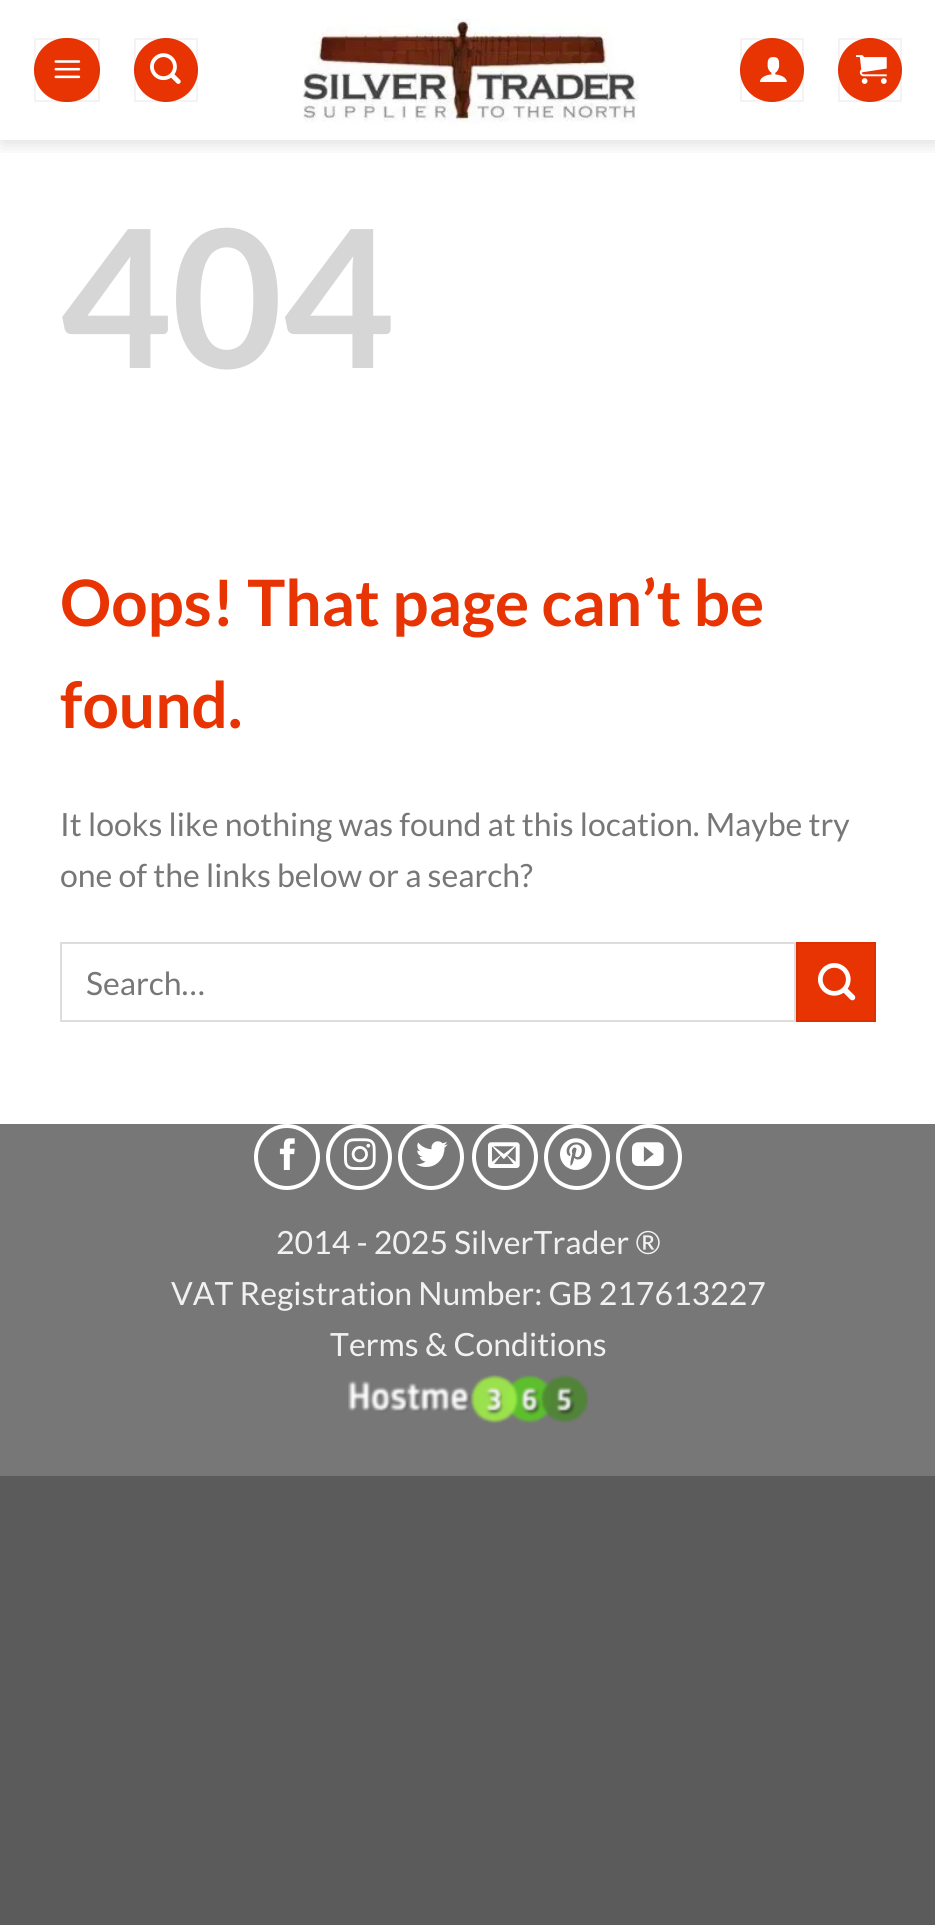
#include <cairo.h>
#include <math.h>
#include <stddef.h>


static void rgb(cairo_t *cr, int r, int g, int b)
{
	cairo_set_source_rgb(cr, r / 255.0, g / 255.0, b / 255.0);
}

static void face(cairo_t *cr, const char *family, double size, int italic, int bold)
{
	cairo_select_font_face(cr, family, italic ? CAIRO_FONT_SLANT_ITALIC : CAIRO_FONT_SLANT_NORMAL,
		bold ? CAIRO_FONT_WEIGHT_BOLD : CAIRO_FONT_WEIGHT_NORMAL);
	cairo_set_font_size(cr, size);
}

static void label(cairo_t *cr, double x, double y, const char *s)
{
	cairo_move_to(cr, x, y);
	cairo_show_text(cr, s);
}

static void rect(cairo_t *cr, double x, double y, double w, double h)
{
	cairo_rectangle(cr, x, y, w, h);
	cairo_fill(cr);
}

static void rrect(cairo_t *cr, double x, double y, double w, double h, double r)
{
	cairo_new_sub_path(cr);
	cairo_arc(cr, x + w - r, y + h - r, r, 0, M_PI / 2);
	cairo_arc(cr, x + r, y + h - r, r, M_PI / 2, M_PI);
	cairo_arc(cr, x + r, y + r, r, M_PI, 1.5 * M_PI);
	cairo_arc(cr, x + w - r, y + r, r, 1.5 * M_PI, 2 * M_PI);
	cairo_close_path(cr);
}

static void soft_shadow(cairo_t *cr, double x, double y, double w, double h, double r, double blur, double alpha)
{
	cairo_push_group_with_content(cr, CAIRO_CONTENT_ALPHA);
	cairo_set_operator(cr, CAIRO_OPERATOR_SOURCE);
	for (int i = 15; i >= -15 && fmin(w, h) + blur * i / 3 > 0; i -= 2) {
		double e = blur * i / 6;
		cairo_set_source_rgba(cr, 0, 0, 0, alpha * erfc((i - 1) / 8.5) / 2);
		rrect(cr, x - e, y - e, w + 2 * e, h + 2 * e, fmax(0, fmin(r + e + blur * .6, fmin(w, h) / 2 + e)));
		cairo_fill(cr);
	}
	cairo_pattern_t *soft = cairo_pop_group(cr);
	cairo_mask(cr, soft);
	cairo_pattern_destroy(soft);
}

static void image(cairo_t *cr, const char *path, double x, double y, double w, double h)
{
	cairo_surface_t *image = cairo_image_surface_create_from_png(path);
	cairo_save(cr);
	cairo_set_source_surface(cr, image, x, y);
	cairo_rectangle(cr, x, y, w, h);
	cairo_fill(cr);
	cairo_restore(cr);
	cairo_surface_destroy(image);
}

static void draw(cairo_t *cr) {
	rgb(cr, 91, 91, 91);
	cairo_paint(cr);
	rgb(cr, 255, 255, 255);
	rect(cr, 0, 0, 935, 1124);
	cairo_save(cr);
	cairo_rectangle(cr, 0, 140, 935, 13);
	cairo_clip(cr);
	rgb(cr, 0, 0, 0);
	soft_shadow(cr, 2, 2, 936, 140, 0, 10, 0.15);
	cairo_restore(cr);
	rgb(cr, 232, 52, 3);
	rrect(cr, 34, 38, 66, 64, 32);
	cairo_fill(cr);
	cairo_rectangle(cr, 35, 39, 64, 62);
	cairo_set_source_rgba(cr, 0, 0, 0, 0.05);
	cairo_stroke(cr);
	image(cr, "image0.png", 54, 60, 27, 19);
	rgb(cr, 232, 52, 3);
	cairo_arc(cr, 166, 70, 32, 0, 2 * M_PI);
	cairo_fill(cr);
	cairo_rectangle(cr, 135, 39, 62, 62);
	cairo_set_source_rgba(cr, 0, 0, 0, 0.05);
	cairo_stroke(cr);
	image(cr, "image1.png", 150, 53, 31, 31);
	image(cr, "image2.png", 303, 18, 336, 106);
	rgb(cr, 232, 52, 3);
	cairo_arc(cr, 772, 70, 32, 0, 2 * M_PI);
	cairo_fill(cr);
	cairo_rectangle(cr, 741, 39, 62, 62);
	cairo_set_source_rgba(cr, 0, 0, 0, 0.05);
	cairo_stroke(cr);
	image(cr, "image3.png", 760, 57, 27, 25);
	rgb(cr, 232, 52, 3);
	cairo_arc(cr, 870, 70, 32, 0, 2 * M_PI);
	cairo_fill(cr);
	cairo_rectangle(cr, 839, 39, 62, 62);
	cairo_set_source_rgba(cr, 0, 0, 0, 0.05);
	cairo_stroke(cr);
	image(cr, "image4.png", 856, 55, 31, 29);
	face(cr, "Lato", 192, 0, 1);
	rgb(cr, 214, 214, 214);
	label(cr, 60, 368, "404");
	face(cr, "Lato", 64, 0, 1);
	rgb(cr, 232, 52, 3);
	label(cr, 60, 626, "Oops! That page can’t be");
	label(cr, 60, 728, "found.");
	face(cr, "Lato", 32, 0, 0);
	rgb(cr, 119, 119, 119);
	label(cr, 60, 836, "It looks like nothing was found at this location. Maybe try");
	label(cr, 60, 887, "one of the links below or a search?");
	cairo_rectangle(cr, 61, 943, 734, 78);
	rgb(cr, 221, 221, 221);
	cairo_stroke(cr);
	rgb(cr, 119, 119, 119);
	label(cr, 86, 995, "Search…");
	rgb(cr, 232, 52, 3);
	cairo_rectangle(cr, 797, 943, 78, 78);
	cairo_fill_preserve(cr);
	rgb(cr, 220, 49, 3);
	cairo_stroke(cr);
	image(cr, "image5.png", 818, 963, 38, 38);
	rgb(cr, 119, 119, 119);
	rect(cr, 0, 1124, 935, 352);
	cairo_arc(cr, 287, 1157, 31, 0, 2 * M_PI);
	rgb(cr, 255, 255, 255);
	cairo_set_line_width(cr, 4);
	cairo_stroke(cr);
	image(cr, "image6.png", 279, 1138, 16, 32);
	cairo_arc(cr, 359, 1157, 31, 0, 2 * M_PI);
	cairo_stroke(cr);
	image(cr, "image7.png", 344, 1138, 32, 32);
	cairo_arc(cr, 431, 1157, 31, 0, 2 * M_PI);
	cairo_stroke(cr);
	image(cr, "image8.png", 416, 1141, 32, 26);
	cairo_arc(cr, 505, 1157, 31, 0, 2 * M_PI);
	cairo_stroke(cr);
	image(cr, "image9.png", 488, 1142, 32, 26);
	cairo_arc(cr, 577, 1157, 31, 0, 2 * M_PI);
	cairo_stroke(cr);
	image(cr, "image10.png", 560, 1138, 32, 32);
	cairo_arc(cr, 649, 1157, 31, 0, 2 * M_PI);
	cairo_stroke(cr);
	image(cr, "image11.png", 632, 1142, 32, 24);
	rgb(cr, 241, 241, 241);
	label(cr, 276, 1254, "2014 - 2025 SilverTrader ®");
	label(cr, 171, 1305, "VAT Registration Number: GB 217613227");
	label(cr, 330, 1356, "Terms & Conditions");
	image(cr, "image12.png", 348, 1374, 240, 50);
}

int main(void) {
	cairo_surface_t *surface = cairo_image_surface_create(CAIRO_FORMAT_RGB24, 935, 1925);
	cairo_t *cr = cairo_create(surface);
	cairo_font_options_t *options = cairo_font_options_create();
	cairo_font_options_set_hint_metrics(options, CAIRO_HINT_METRICS_OFF);
	cairo_font_options_set_hint_style(options, CAIRO_HINT_STYLE_NONE);
	cairo_set_font_options(cr, options);
	cairo_set_miter_limit(cr, 4);
	draw(cr);
	cairo_surface_write_to_png(surface, "render.png");
	cairo_font_options_destroy(options);
	cairo_destroy(cr);
	cairo_surface_destroy(surface);
	return 0;
}
